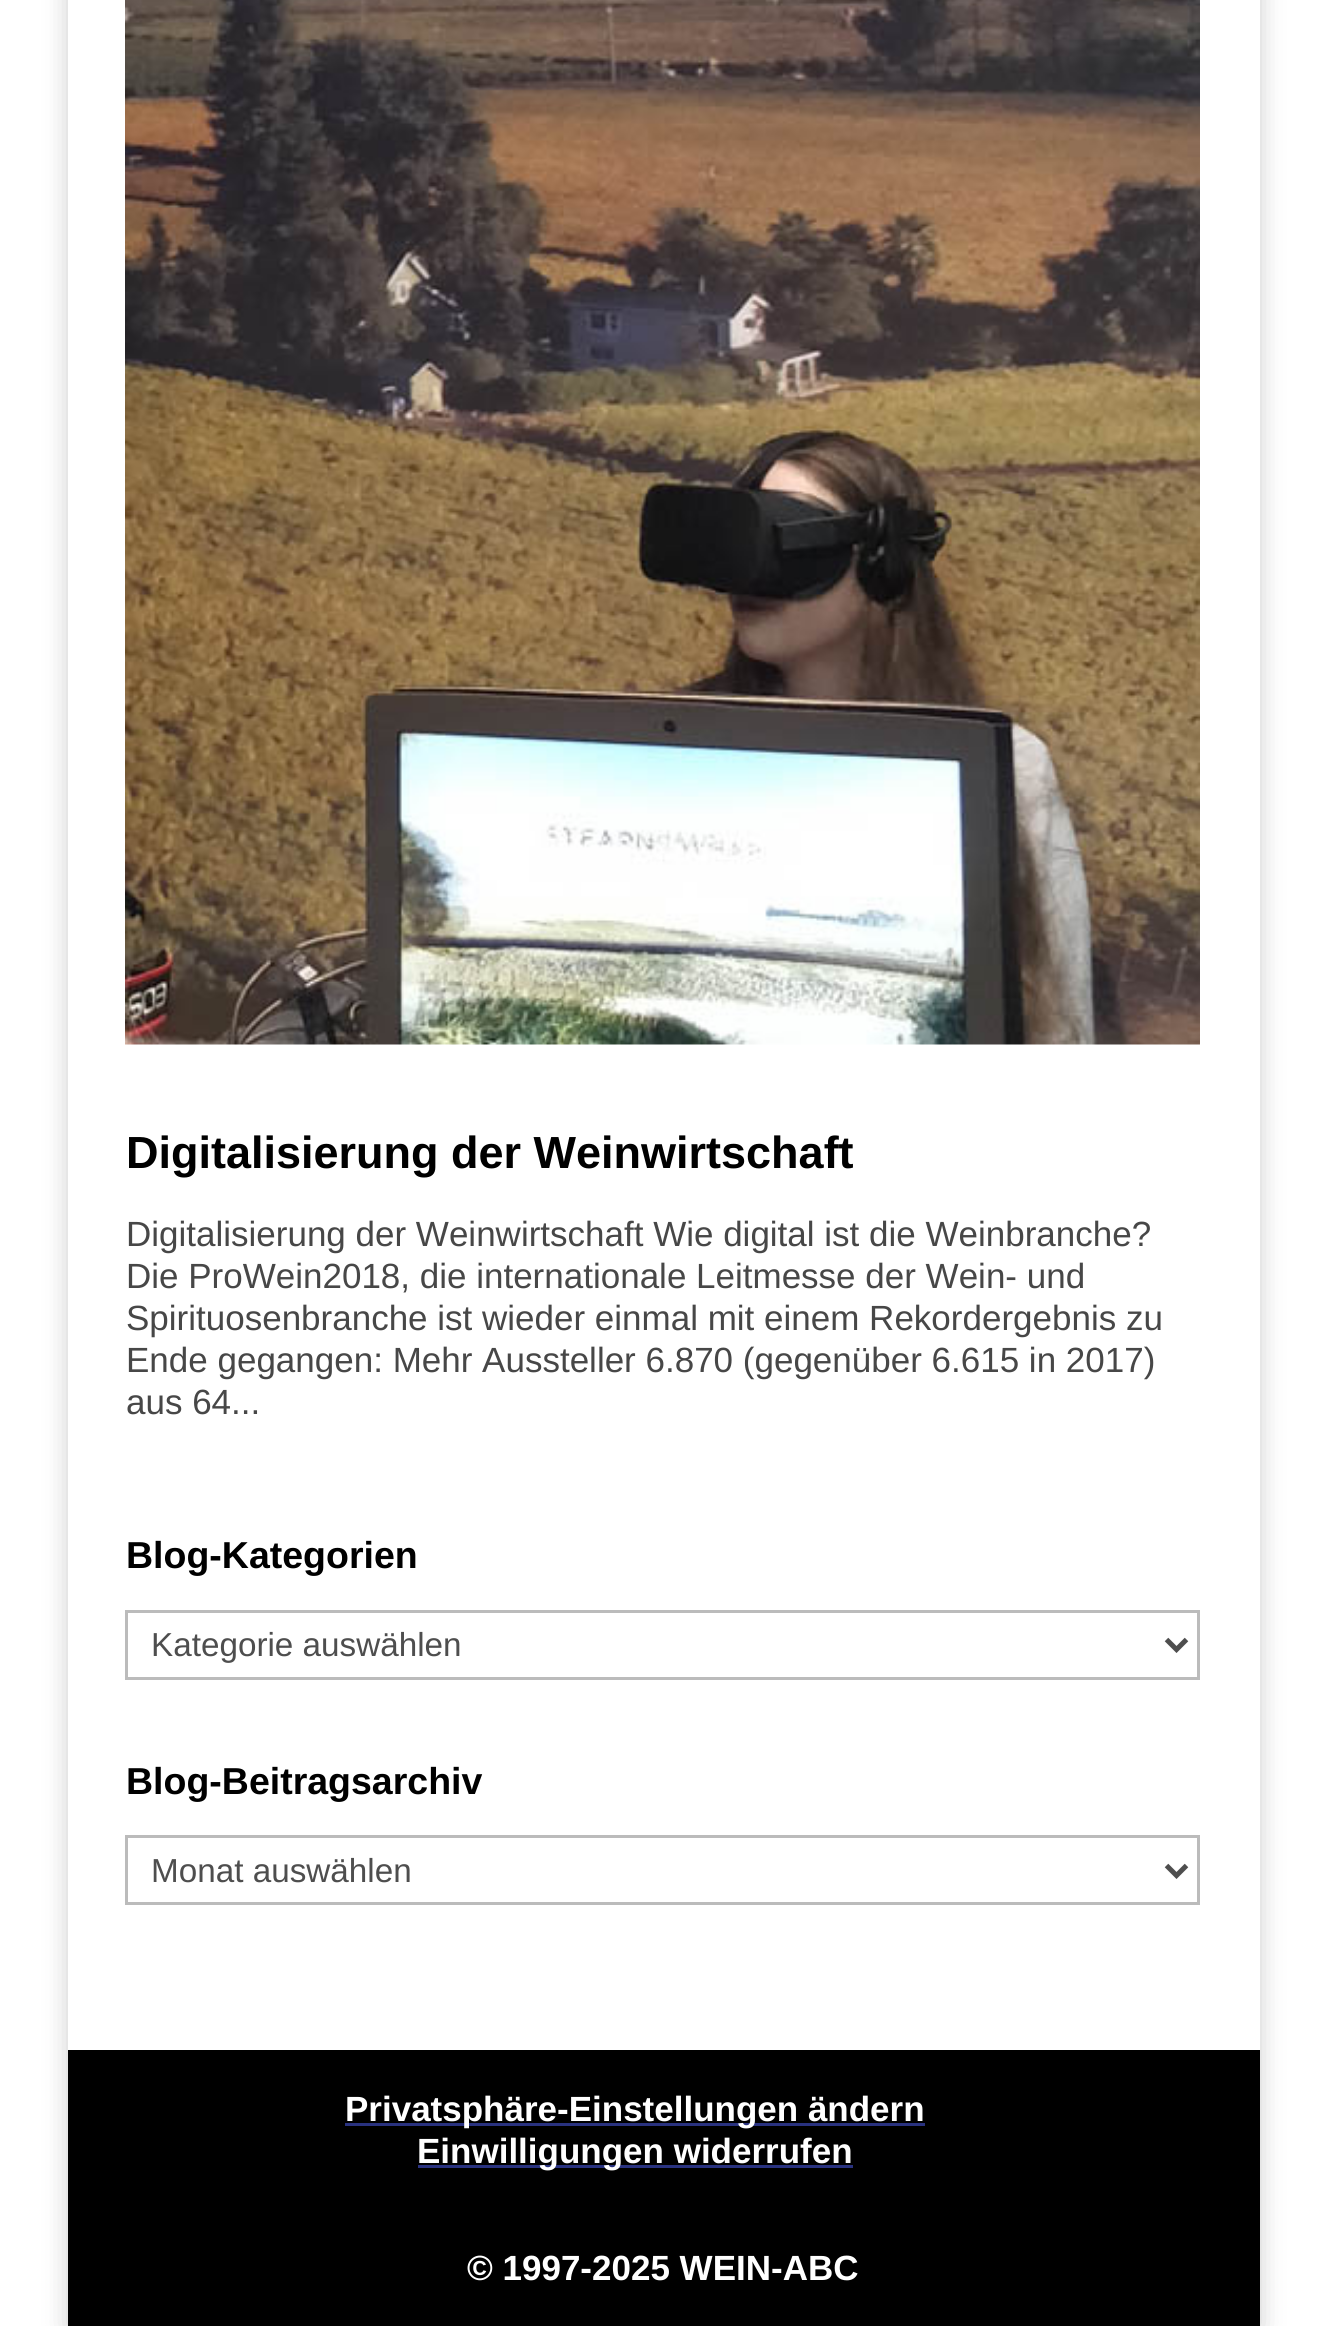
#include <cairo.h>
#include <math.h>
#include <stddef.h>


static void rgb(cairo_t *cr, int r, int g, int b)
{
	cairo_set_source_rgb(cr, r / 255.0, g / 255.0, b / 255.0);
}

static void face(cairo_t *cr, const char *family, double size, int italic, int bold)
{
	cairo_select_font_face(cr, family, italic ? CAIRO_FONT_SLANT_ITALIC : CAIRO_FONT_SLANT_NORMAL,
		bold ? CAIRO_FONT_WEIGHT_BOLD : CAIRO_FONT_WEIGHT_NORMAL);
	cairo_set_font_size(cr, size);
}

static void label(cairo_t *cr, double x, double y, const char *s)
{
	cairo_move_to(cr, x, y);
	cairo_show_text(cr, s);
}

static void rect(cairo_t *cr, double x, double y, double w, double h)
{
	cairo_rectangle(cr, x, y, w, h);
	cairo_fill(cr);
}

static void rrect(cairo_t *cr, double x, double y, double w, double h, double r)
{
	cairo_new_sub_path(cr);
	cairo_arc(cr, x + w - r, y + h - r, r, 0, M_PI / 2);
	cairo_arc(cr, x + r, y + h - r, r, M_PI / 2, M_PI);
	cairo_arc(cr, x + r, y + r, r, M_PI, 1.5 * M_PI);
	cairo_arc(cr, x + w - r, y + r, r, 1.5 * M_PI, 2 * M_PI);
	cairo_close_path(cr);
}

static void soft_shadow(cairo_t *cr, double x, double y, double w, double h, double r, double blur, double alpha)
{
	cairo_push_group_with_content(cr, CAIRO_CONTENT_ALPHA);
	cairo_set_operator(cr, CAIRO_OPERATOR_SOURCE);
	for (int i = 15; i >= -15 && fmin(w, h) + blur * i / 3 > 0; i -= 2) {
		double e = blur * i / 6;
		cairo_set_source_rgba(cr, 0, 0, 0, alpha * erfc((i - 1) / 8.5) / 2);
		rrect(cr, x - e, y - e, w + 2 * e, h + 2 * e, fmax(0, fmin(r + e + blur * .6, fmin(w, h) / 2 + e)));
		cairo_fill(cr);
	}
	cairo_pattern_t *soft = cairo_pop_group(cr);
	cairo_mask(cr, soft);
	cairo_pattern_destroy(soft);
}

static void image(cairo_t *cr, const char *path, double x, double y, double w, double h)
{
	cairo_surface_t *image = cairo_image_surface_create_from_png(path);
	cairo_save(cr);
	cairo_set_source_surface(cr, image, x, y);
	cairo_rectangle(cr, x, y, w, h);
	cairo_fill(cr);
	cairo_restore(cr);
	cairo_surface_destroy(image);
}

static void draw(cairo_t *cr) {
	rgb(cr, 255, 255, 255);
	cairo_paint(cr);
	cairo_save(cr);
	cairo_set_fill_rule(cr, CAIRO_FILL_RULE_EVEN_ODD);
	cairo_new_path(cr);
	cairo_move_to(cr, 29, 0);
	cairo_line_to(cr, 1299, 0);
	cairo_line_to(cr, 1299, 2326);
	cairo_line_to(cr, 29, 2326);
	cairo_close_path(cr);
	cairo_move_to(cr, 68, -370);
	cairo_line_to(cr, 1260, -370);
	cairo_line_to(cr, 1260, 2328);
	cairo_line_to(cr, 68, 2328);
	cairo_close_path(cr);
	cairo_clip(cr);
	rgb(cr, 0, 0, 0);
	soft_shadow(cr, 68, -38, 1192, 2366, 0, 12.5, 0.2);
	cairo_restore(cr);
	image(cr, "image0.png", 125, 0, 1075, 1045);
	face(cr, "Liberation Sans", 45, 0, 1);
	rgb(cr, 0, 0, 0);
	label(cr, 126, 1168, "Digitalisierung der Weinwirtschaft");
	face(cr, "Liberation Sans", 35, 0, 0);
	rgb(cr, 71, 71, 71);
	label(cr, 126, 1246, "Digitalisierung der Weinwirtschaft Wie digital ist die Weinbranche?");
	label(cr, 126, 1288, "Die ProWein2018, die internationale Leitmesse der Wein- und");
	label(cr, 126, 1330, "Spirituosenbranche ist wieder einmal mit einem Rekordergebnis zu");
	label(cr, 126, 1372, "Ende gegangen: Mehr Aussteller 6.870 (gegenüber 6.615 in 2017)");
	label(cr, 126, 1414, "aus 64...");
	face(cr, "Liberation Sans", 37.5, 0, 1);
	rgb(cr, 0, 0, 0);
	label(cr, 126, 1568, "Blog-Kategorien");
	cairo_rectangle(cr, 126.5, 1611.5, 1072, 67);
	rgb(cr, 187, 187, 187);
	cairo_set_line_width(cr, 3);
	cairo_stroke(cr);
	cairo_new_path(cr);
	cairo_move_to(cr, 1166.5, 1639.5);
	cairo_line_to(cr, 1176.5, 1649.5);
	cairo_line_to(cr, 1186.5, 1639.5);
	rgb(cr, 78, 78, 78);
	cairo_set_line_width(cr, 5);
	cairo_stroke(cr);
	face(cr, "Liberation Sans", 33.25, 0, 0);
	label(cr, 151, 1656, "Kategorie auswählen");
	face(cr, "Liberation Sans", 37.5, 0, 1);
	rgb(cr, 0, 0, 0);
	label(cr, 126, 1794, "Blog-Beitragsarchiv");
	cairo_rectangle(cr, 126.5, 1836.5, 1072, 67);
	rgb(cr, 187, 187, 187);
	cairo_set_line_width(cr, 3);
	cairo_stroke(cr);
	cairo_new_path(cr);
	cairo_move_to(cr, 1166.5, 1865.5);
	cairo_line_to(cr, 1176.5, 1875.5);
	cairo_line_to(cr, 1186.5, 1865.5);
	rgb(cr, 78, 78, 78);
	cairo_set_line_width(cr, 5);
	cairo_stroke(cr);
	face(cr, "Liberation Sans", 33.25, 0, 0);
	label(cr, 151, 1882, "Monat auswählen");
	rgb(cr, 0, 0, 0);
	rect(cr, 68, 2050, 1192, 276);
	rgb(cr, 41, 50, 128);
	rect(cr, 345, 2123, 580, 3);
	face(cr, "Liberation Sans", 35, 0, 1);
	rgb(cr, 255, 255, 255);
	label(cr, 345, 2121, "Privatsphäre-Einstellungen ändern");
	rgb(cr, 41, 50, 128);
	rect(cr, 418, 2165, 435, 3);
	rgb(cr, 255, 255, 255);
	label(cr, 417, 2163, "Einwilligungen widerrufen");
	label(cr, 467, 2280, "© 1997-2025 WEIN-ABC");
}

int main(void) {
	cairo_surface_t *surface = cairo_image_surface_create(CAIRO_FORMAT_RGB24, 1323, 2326);
	cairo_t *cr = cairo_create(surface);
	cairo_font_options_t *options = cairo_font_options_create();
	cairo_font_options_set_hint_metrics(options, CAIRO_HINT_METRICS_OFF);
	cairo_font_options_set_hint_style(options, CAIRO_HINT_STYLE_NONE);
	cairo_set_font_options(cr, options);
	cairo_set_miter_limit(cr, 4);
	draw(cr);
	cairo_surface_write_to_png(surface, "render.png");
	cairo_font_options_destroy(options);
	cairo_destroy(cr);
	cairo_surface_destroy(surface);
	return 0;
}
